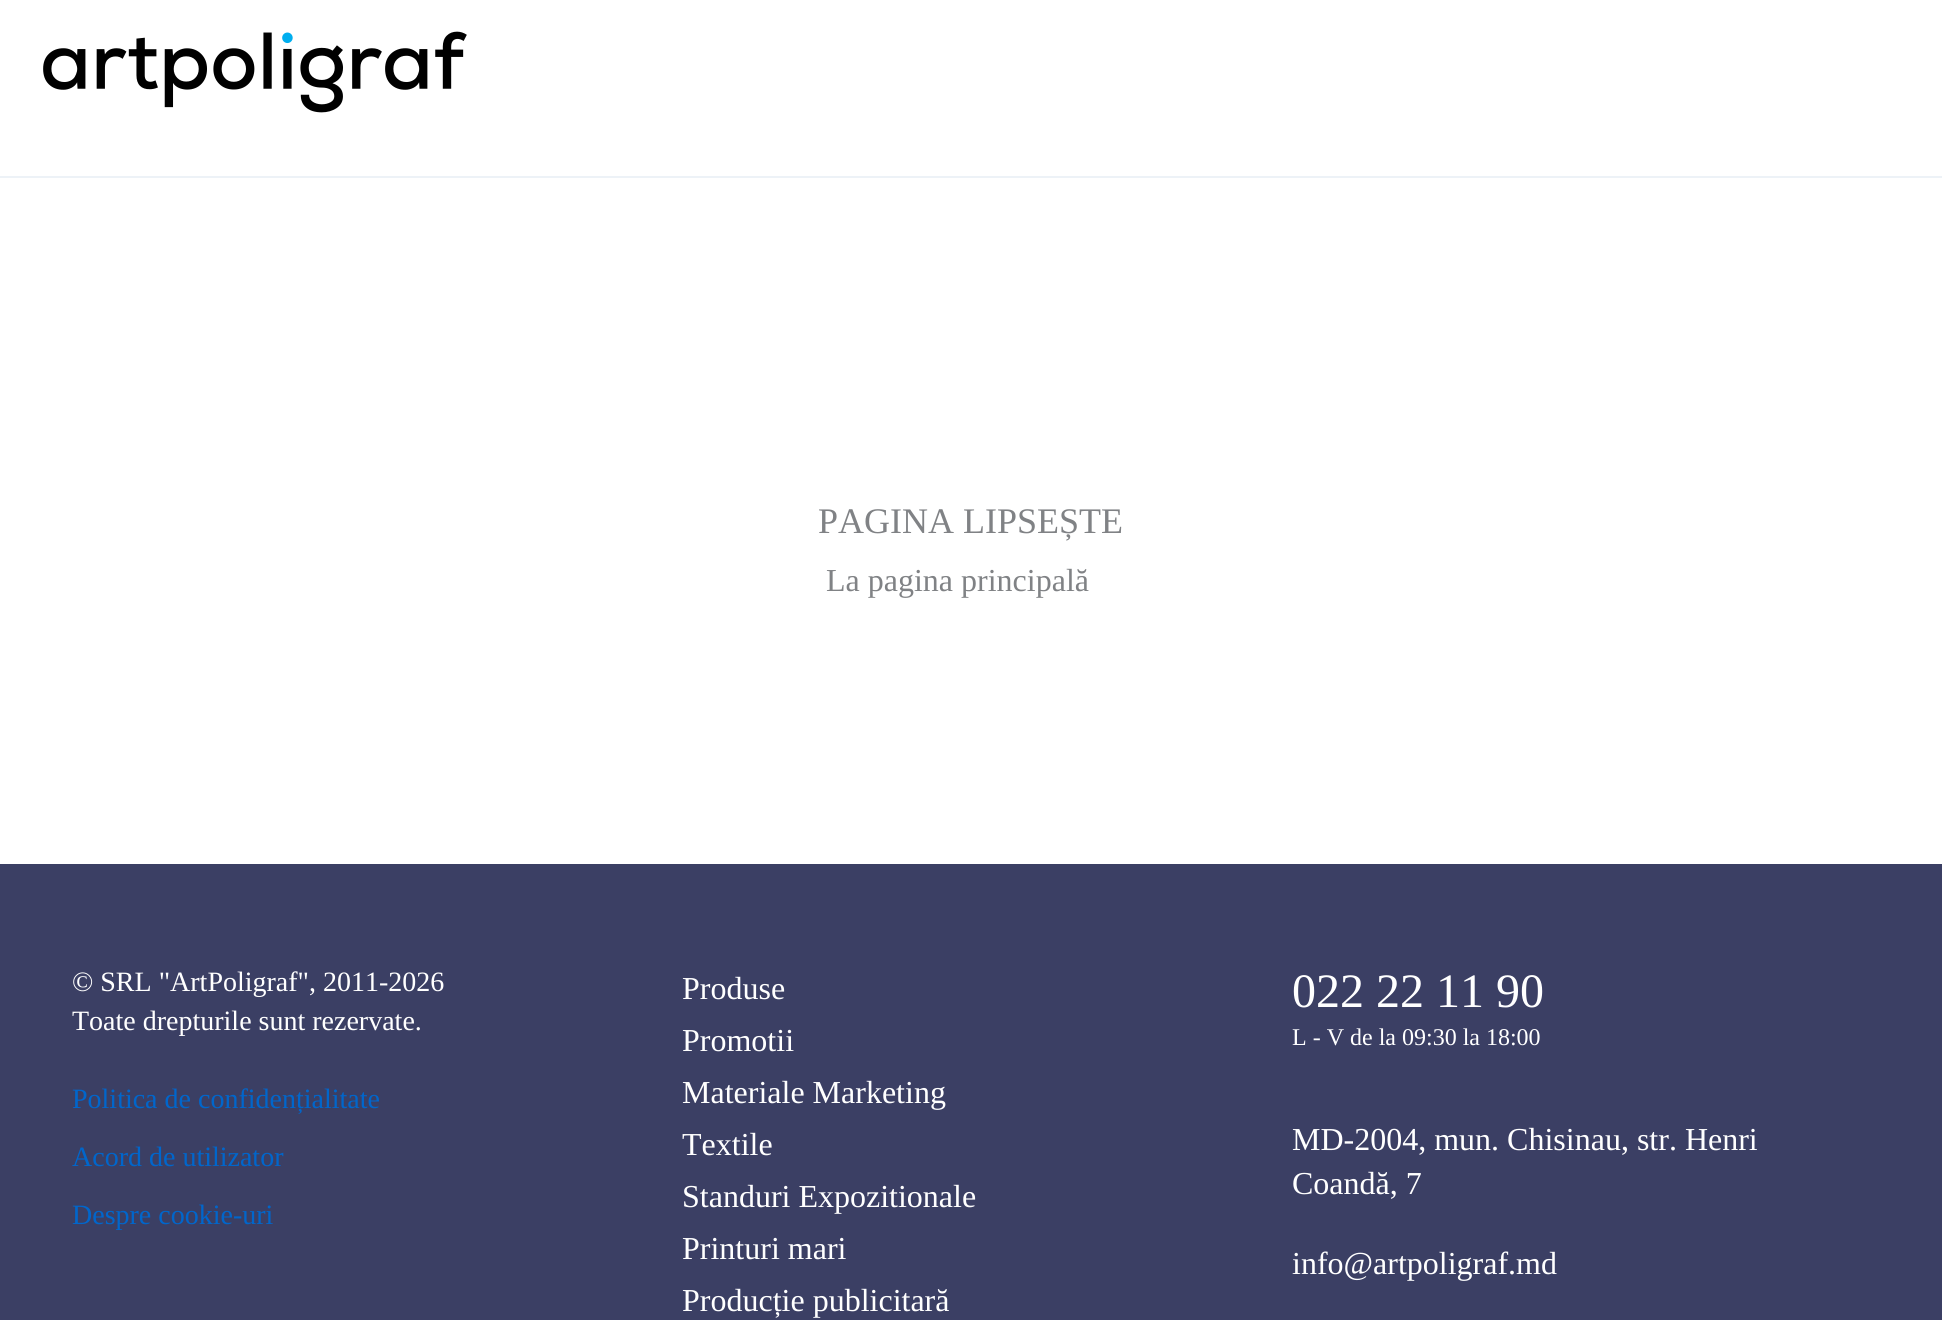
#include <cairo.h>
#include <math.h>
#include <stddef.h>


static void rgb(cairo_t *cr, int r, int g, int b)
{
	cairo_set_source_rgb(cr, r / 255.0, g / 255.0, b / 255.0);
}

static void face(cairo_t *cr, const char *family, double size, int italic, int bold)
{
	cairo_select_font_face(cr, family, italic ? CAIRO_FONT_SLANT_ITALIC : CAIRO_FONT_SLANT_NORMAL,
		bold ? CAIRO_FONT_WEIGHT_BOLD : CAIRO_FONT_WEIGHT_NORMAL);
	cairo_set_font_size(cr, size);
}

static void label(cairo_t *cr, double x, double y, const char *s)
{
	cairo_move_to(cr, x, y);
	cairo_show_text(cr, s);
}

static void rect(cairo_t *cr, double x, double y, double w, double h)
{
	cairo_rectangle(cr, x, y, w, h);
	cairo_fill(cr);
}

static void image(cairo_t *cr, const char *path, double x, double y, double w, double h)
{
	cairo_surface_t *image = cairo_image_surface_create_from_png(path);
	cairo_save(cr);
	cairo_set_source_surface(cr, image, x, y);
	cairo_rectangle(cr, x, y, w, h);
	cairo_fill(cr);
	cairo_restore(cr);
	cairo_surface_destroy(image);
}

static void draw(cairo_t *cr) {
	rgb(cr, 255, 255, 255);
	cairo_paint(cr);
	image(cr, "image0.png", 43, 31, 424, 82);
	rgb(cr, 237, 242, 247);
	rect(cr, 0, 176, 1942, 2);
	face(cr, "Liberation Serif", 36, 0, 0);
	rgb(cr, 128, 130, 133);
	label(cr, 818, 533, "PAGINA LIPSEȘTE");
	face(cr, "Liberation Serif", 32, 0, 0);
	label(cr, 826, 591, "La pagina principală");
	rgb(cr, 59, 63, 100);
	rect(cr, 0, 864, 1942, 456);
	face(cr, "Liberation Serif", 28, 0, 0);
	rgb(cr, 255, 255, 255);
	label(cr, 72, 991, "© SRL \"ArtPoligraf\", 2011-2026");
	label(cr, 72, 1030, "Toate drepturile sunt rezervate.");
	rgb(cr, 0, 102, 204);
	label(cr, 72, 1108, "Politica de confidențialitate");
	label(cr, 72, 1166, "Acord de utilizator");
	label(cr, 72, 1224, "Despre cookie-uri");
	face(cr, "Liberation Serif", 32, 0, 0);
	rgb(cr, 255, 255, 255);
	label(cr, 682, 999, "Produse");
	label(cr, 682, 1051, "Promotii");
	label(cr, 682, 1103, "Materiale Marketing");
	label(cr, 682, 1155, "Textile");
	label(cr, 682, 1207, "Standuri Expozitionale");
	label(cr, 682, 1259, "Printuri mari");
	label(cr, 682, 1311, "Producție publicitară");
	face(cr, "Liberation Serif", 48, 0, 0);
	label(cr, 1292, 1007, "022 22 11 90");
	face(cr, "Liberation Serif", 24, 0, 0);
	label(cr, 1292, 1045, "L - V de la 09:30 la 18:00");
	face(cr, "Liberation Serif", 32, 0, 0);
	label(cr, 1292, 1150, "MD-2004, mun. Chisinau, str. Henri");
	label(cr, 1292, 1194, "Coandă, 7");
	label(cr, 1292, 1274, "info@artpoligraf.md");
}

int main(void) {
	cairo_surface_t *surface = cairo_image_surface_create(CAIRO_FORMAT_RGB24, 1942, 1320);
	cairo_t *cr = cairo_create(surface);
	cairo_font_options_t *options = cairo_font_options_create();
	cairo_font_options_set_hint_metrics(options, CAIRO_HINT_METRICS_OFF);
	cairo_font_options_set_hint_style(options, CAIRO_HINT_STYLE_NONE);
	cairo_set_font_options(cr, options);
	cairo_set_miter_limit(cr, 4);
	draw(cr);
	cairo_surface_write_to_png(surface, "render.png");
	cairo_font_options_destroy(options);
	cairo_destroy(cr);
	cairo_surface_destroy(surface);
	return 0;
}
